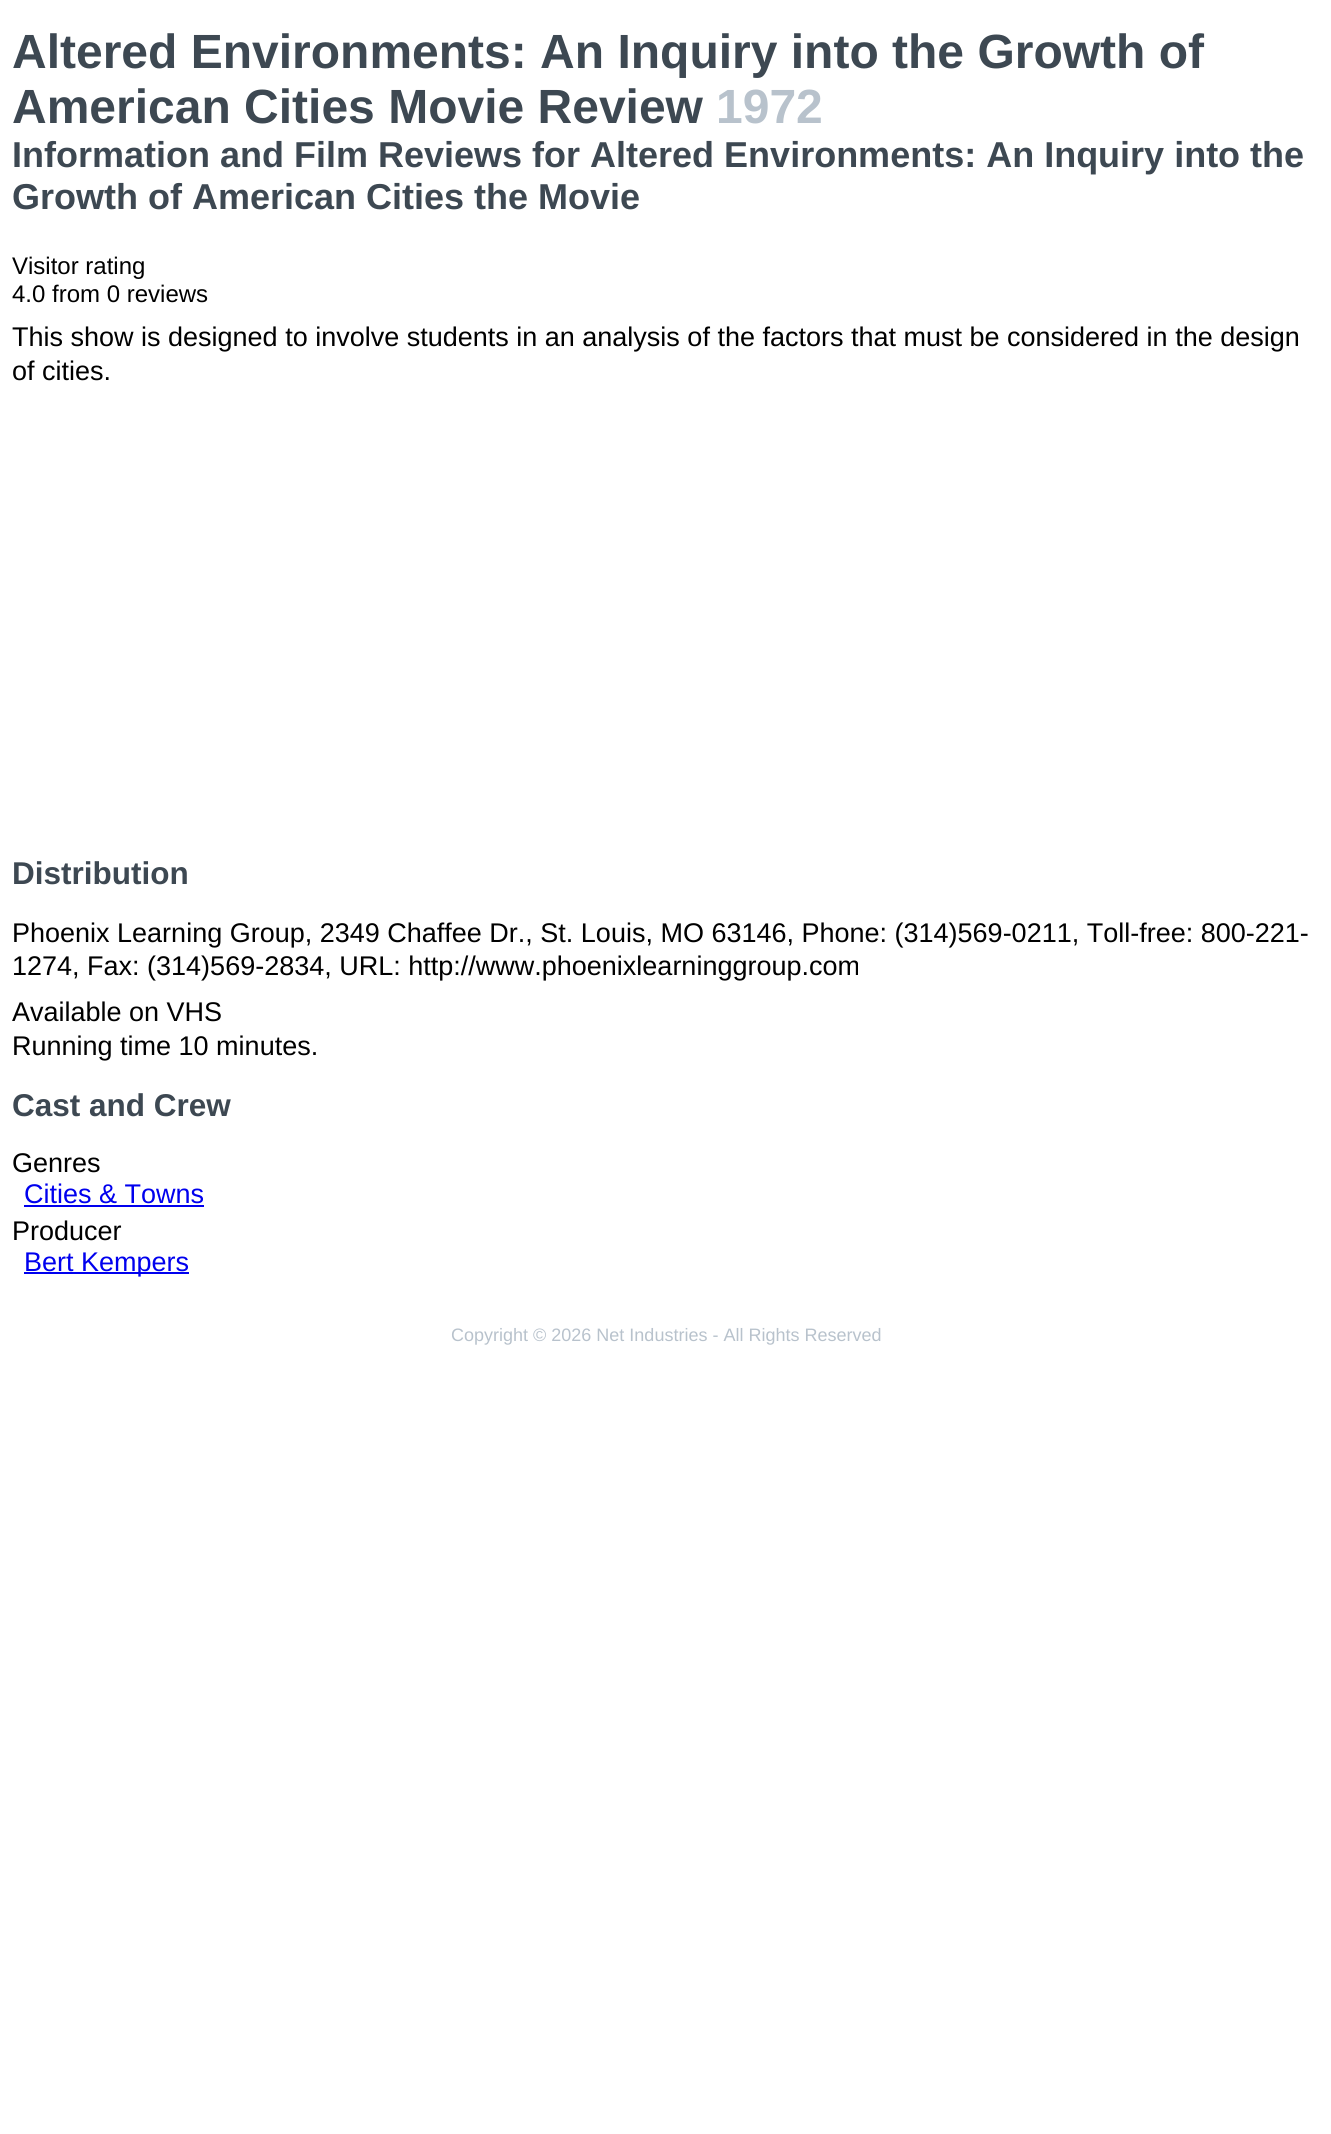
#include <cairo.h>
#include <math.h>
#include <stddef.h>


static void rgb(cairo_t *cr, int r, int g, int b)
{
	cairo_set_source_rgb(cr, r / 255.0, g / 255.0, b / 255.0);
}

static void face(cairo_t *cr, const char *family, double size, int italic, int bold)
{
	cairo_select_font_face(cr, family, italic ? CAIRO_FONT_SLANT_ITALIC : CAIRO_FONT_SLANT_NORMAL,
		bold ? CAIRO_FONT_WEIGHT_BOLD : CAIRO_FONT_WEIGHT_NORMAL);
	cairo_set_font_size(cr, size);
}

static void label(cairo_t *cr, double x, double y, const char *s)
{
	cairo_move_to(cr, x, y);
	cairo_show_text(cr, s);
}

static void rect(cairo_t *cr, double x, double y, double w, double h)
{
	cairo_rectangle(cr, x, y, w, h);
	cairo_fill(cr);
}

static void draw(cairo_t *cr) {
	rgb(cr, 255, 255, 255);
	cairo_paint(cr);
	face(cr, "Liberation Sans", 48, 0, 1);
	rgb(cr, 61, 72, 82);
	label(cr, 12, 68, "Altered Environments: An Inquiry into the Growth of");
	label(cr, 12, 123, "American Cities Movie Review");
	rgb(cr, 184, 194, 204);
	label(cr, 716, 123, "1972");
	face(cr, "Liberation Sans", 36, 0, 1);
	rgb(cr, 61, 72, 82);
	label(cr, 12, 167, "Information and Film Reviews for Altered Environments: An Inquiry into the");
	label(cr, 12, 209, "Growth of American Cities the Movie");
	face(cr, "Liberation Sans", 24, 0, 0);
	rgb(cr, 0, 0, 0);
	label(cr, 12, 274, "Visitor rating");
	label(cr, 12, 302, "4.0 from 0 reviews");
	face(cr, "Liberation Sans", 27, 0, 0);
	label(cr, 12, 346, "This show is designed to involve students in an analysis of the factors that must be considered in the design");
	label(cr, 12, 380, "of cities.");
	face(cr, "Liberation Sans", 31.5, 0, 1);
	rgb(cr, 61, 72, 82);
	label(cr, 12, 884, "Distribution");
	face(cr, "Liberation Sans", 27, 0, 0);
	rgb(cr, 0, 0, 0);
	label(cr, 12, 942, "Phoenix Learning Group, 2349 Chaffee Dr., St. Louis, MO 63146, Phone: (314)569-0211, Toll-free: 800-221-");
	label(cr, 12, 975, "1274, Fax: (314)569-2834, URL: http://www.phoenixlearninggroup.com");
	label(cr, 12, 1021, "Available on VHS");
	label(cr, 12, 1055, "Running time 10 minutes.");
	face(cr, "Liberation Sans", 31.5, 0, 1);
	rgb(cr, 61, 72, 82);
	label(cr, 12, 1116, "Cast and Crew");
	face(cr, "Liberation Sans", 27, 0, 0);
	rgb(cr, 0, 0, 0);
	label(cr, 12, 1172, "Genres");
	rgb(cr, 0, 0, 238);
	label(cr, 24, 1203, "Cities & Towns");
	rect(cr, 24, 1205, 180, 2);
	rgb(cr, 0, 0, 0);
	label(cr, 12, 1240, "Producer");
	rgb(cr, 0, 0, 238);
	rect(cr, 24, 1272, 165, 2);
	label(cr, 24, 1271, "Bert Kempers");
	face(cr, "Liberation Sans", 18, 0, 0);
	rgb(cr, 184, 194, 204);
	label(cr, 451, 1341, "Copyright © 2026 Net Industries - All Rights Reserved");
}

int main(void) {
	cairo_surface_t *surface = cairo_image_surface_create(CAIRO_FORMAT_RGB24, 1331, 2134);
	cairo_t *cr = cairo_create(surface);
	cairo_font_options_t *options = cairo_font_options_create();
	cairo_font_options_set_hint_metrics(options, CAIRO_HINT_METRICS_OFF);
	cairo_font_options_set_hint_style(options, CAIRO_HINT_STYLE_NONE);
	cairo_set_font_options(cr, options);
	cairo_set_miter_limit(cr, 4);
	draw(cr);
	cairo_surface_write_to_png(surface, "render.png");
	cairo_font_options_destroy(options);
	cairo_destroy(cr);
	cairo_surface_destroy(surface);
	return 0;
}
